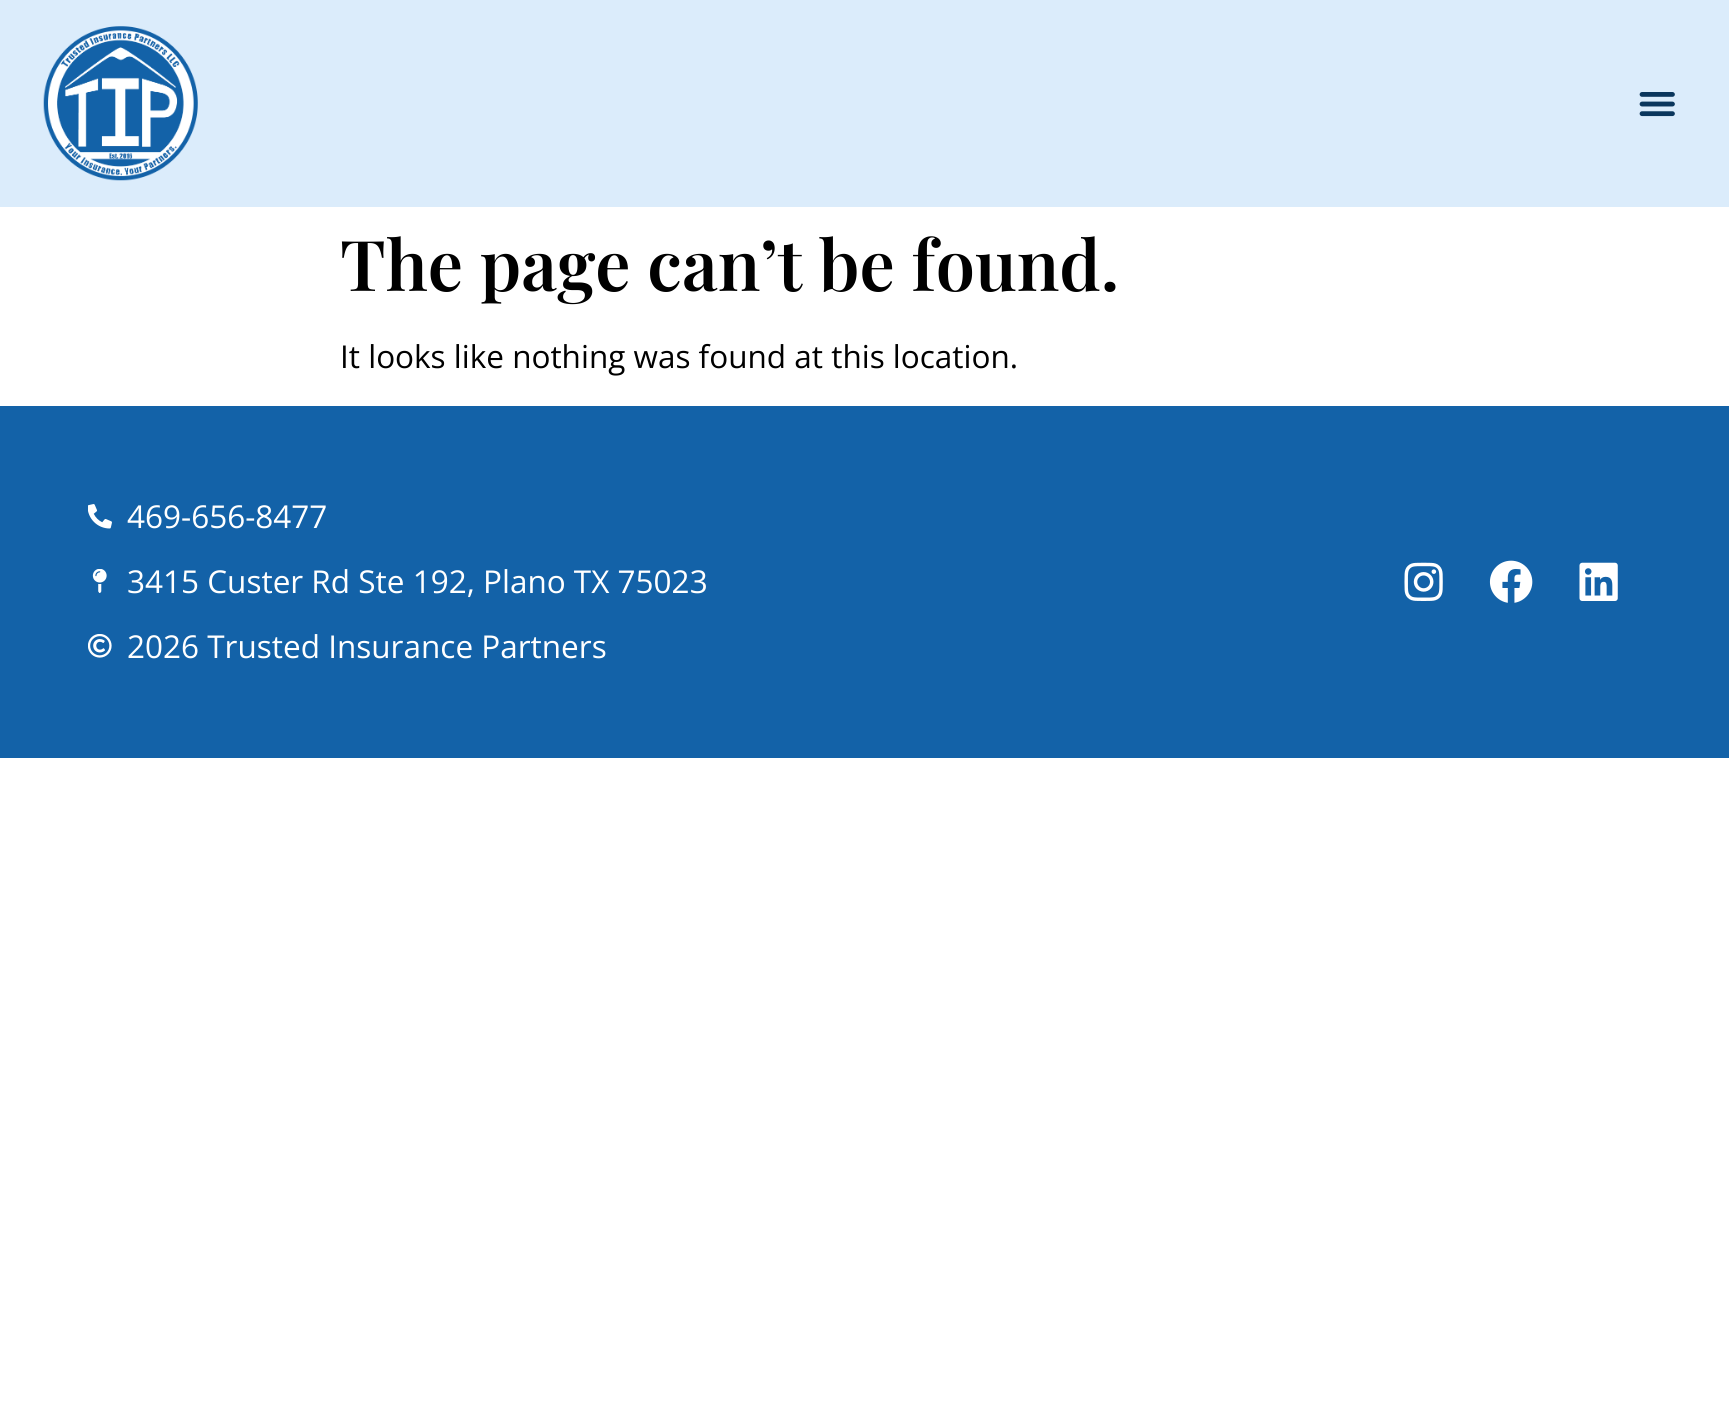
#include <cairo.h>
#include <math.h>
#include <stddef.h>


static void rgb(cairo_t *cr, int r, int g, int b)
{
	cairo_set_source_rgb(cr, r / 255.0, g / 255.0, b / 255.0);
}

static void face(cairo_t *cr, const char *family, double size, int italic, int bold)
{
	cairo_select_font_face(cr, family, italic ? CAIRO_FONT_SLANT_ITALIC : CAIRO_FONT_SLANT_NORMAL,
		bold ? CAIRO_FONT_WEIGHT_BOLD : CAIRO_FONT_WEIGHT_NORMAL);
	cairo_set_font_size(cr, size);
}

static void label(cairo_t *cr, double x, double y, const char *s)
{
	cairo_move_to(cr, x, y);
	cairo_show_text(cr, s);
}

static void rect(cairo_t *cr, double x, double y, double w, double h)
{
	cairo_rectangle(cr, x, y, w, h);
	cairo_fill(cr);
}

static void image(cairo_t *cr, const char *path, double x, double y, double w, double h)
{
	cairo_surface_t *image = cairo_image_surface_create_from_png(path);
	cairo_save(cr);
	cairo_set_source_surface(cr, image, x, y);
	cairo_rectangle(cr, x, y, w, h);
	cairo_fill(cr);
	cairo_restore(cr);
	cairo_surface_destroy(image);
}

static void draw(cairo_t *cr) {
	rgb(cr, 255, 255, 255);
	cairo_paint(cr);
	rgb(cr, 219, 236, 251);
	rect(cr, 0, 0, 1729, 207);
	image(cr, "image0.png", 43, 26, 155, 155);
	image(cr, "image1.png", 1639, 92, 36, 25);
	face(cr, "Playfair Display SemiBold", 70, 0, 0);
	rgb(cr, 0, 0, 0);
	label(cr, 340, 291, "The page can’t be found.");
	face(cr, "Open Sans", 31.5, 0, 0);
	label(cr, 340, 368, "It looks like nothing was found at this location.");
	rgb(cr, 19, 98, 168);
	rect(cr, 0, 406, 1729, 352);
	image(cr, "image2.png", 88, 504, 24, 25);
	rgb(cr, 255, 255, 255);
	label(cr, 127, 528, "469-656-8477");
	image(cr, "image3.png", 92, 569, 15, 24);
	label(cr, 127, 593, "3415 Custer Rd Ste 192, Plano TX 75023");
	image(cr, "image4.png", 88, 634, 24, 24);
	label(cr, 127, 658, "2026 Trusted Insurance Partners");
	image(cr, "image5.png", 1404, 562, 39, 39);
	image(cr, "image6.png", 1489, 560, 44, 43);
	image(cr, "image7.png", 1579, 562, 39, 39);
}

int main(void) {
	cairo_surface_t *surface = cairo_image_surface_create(CAIRO_FORMAT_RGB24, 1729, 1405);
	cairo_t *cr = cairo_create(surface);
	cairo_font_options_t *options = cairo_font_options_create();
	cairo_font_options_set_hint_metrics(options, CAIRO_HINT_METRICS_OFF);
	cairo_font_options_set_hint_style(options, CAIRO_HINT_STYLE_NONE);
	cairo_set_font_options(cr, options);
	cairo_set_miter_limit(cr, 4);
	draw(cr);
	cairo_surface_write_to_png(surface, "render.png");
	cairo_font_options_destroy(options);
	cairo_destroy(cr);
	cairo_surface_destroy(surface);
	return 0;
}
